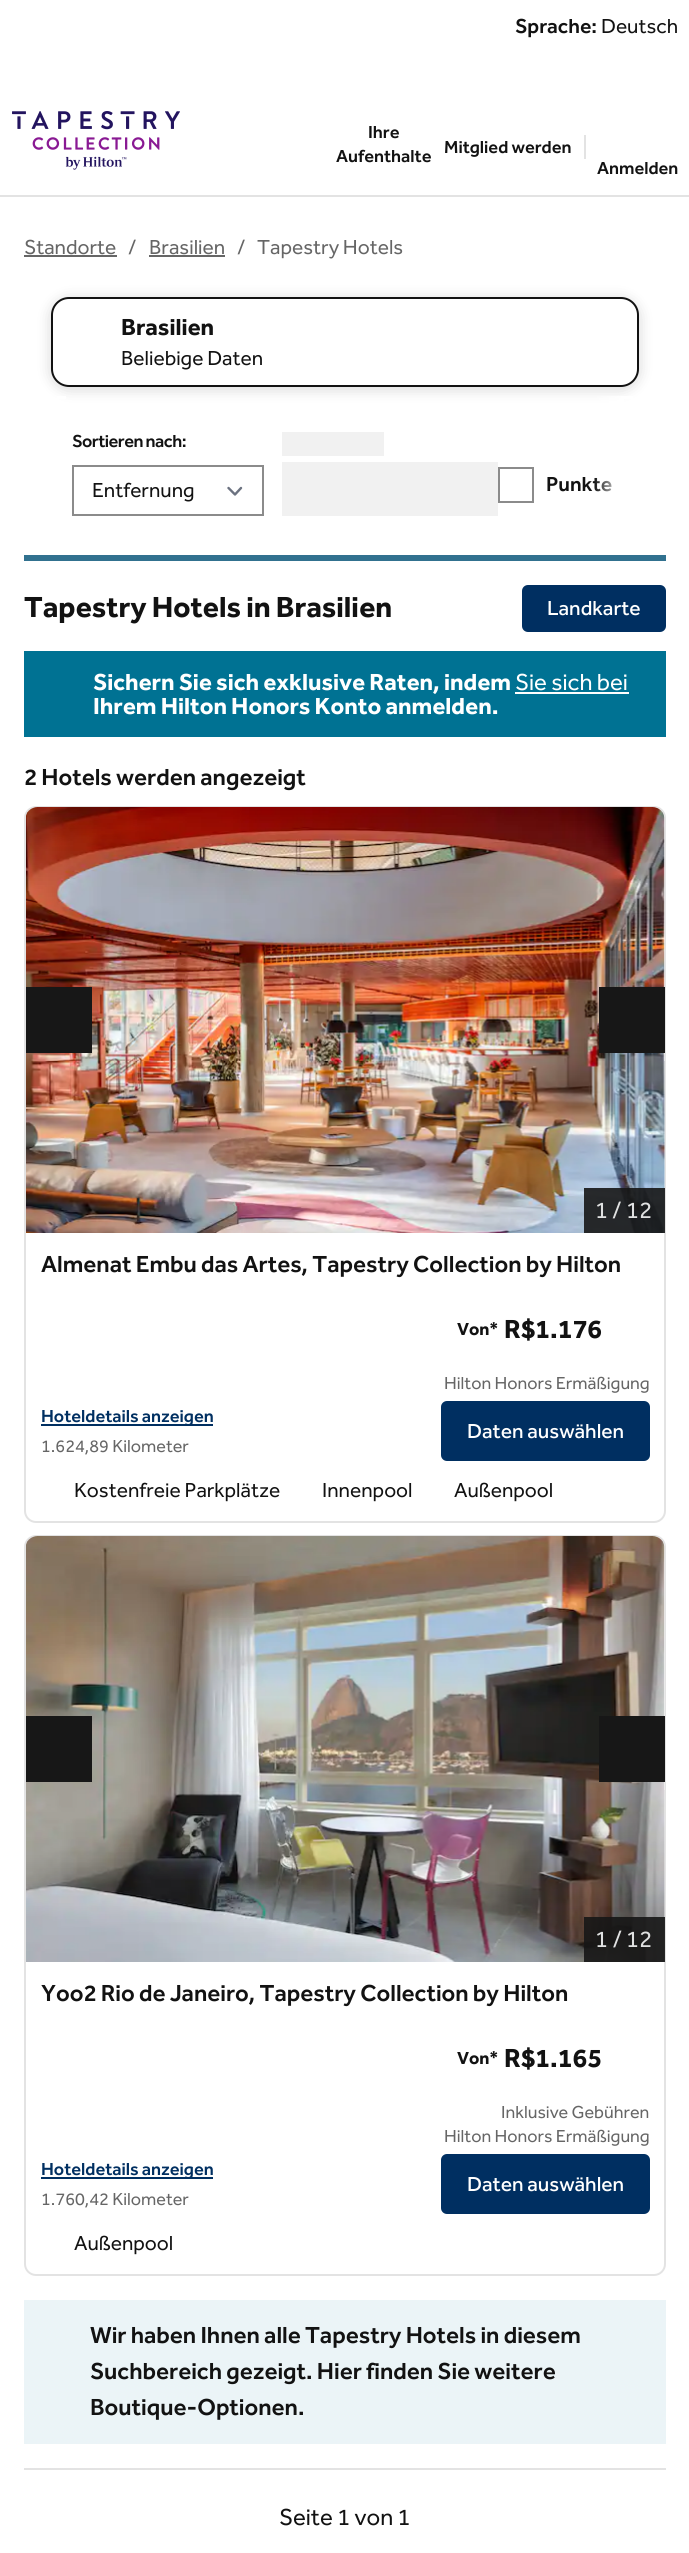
#include <cairo.h>
#include <math.h>
#include <stddef.h>


static void rgb(cairo_t *cr, int r, int g, int b)
{
	cairo_set_source_rgb(cr, r / 255.0, g / 255.0, b / 255.0);
}

static void face(cairo_t *cr, const char *family, double size, int italic, int bold)
{
	cairo_select_font_face(cr, family, italic ? CAIRO_FONT_SLANT_ITALIC : CAIRO_FONT_SLANT_NORMAL,
		bold ? CAIRO_FONT_WEIGHT_BOLD : CAIRO_FONT_WEIGHT_NORMAL);
	cairo_set_font_size(cr, size);
}

static void label(cairo_t *cr, double x, double y, const char *s)
{
	cairo_move_to(cr, x, y);
	cairo_show_text(cr, s);
}

static void tracked(cairo_t *cr, double x, double y, const char *s, double letter, double word)
{
	cairo_move_to(cr, x, y);
	while (*s) {
		char ch[5] = {0};
		int n = 0;
		do ch[n++] = *s++; while ((*s & 0xC0) == 0x80);
		cairo_show_text(cr, ch);
		cairo_rel_move_to(cr, letter + word * (*ch == ' '), 0);
	}
}

static void rect(cairo_t *cr, double x, double y, double w, double h)
{
	cairo_rectangle(cr, x, y, w, h);
	cairo_fill(cr);
}

static void rrect(cairo_t *cr, double x, double y, double w, double h, double r)
{
	cairo_new_sub_path(cr);
	cairo_arc(cr, x + w - r, y + h - r, r, 0, M_PI / 2);
	cairo_arc(cr, x + r, y + h - r, r, M_PI / 2, M_PI);
	cairo_arc(cr, x + r, y + r, r, M_PI, 1.5 * M_PI);
	cairo_arc(cr, x + w - r, y + r, r, 1.5 * M_PI, 2 * M_PI);
	cairo_close_path(cr);
}

static void soft_shadow(cairo_t *cr, double x, double y, double w, double h, double r, double blur, double alpha)
{
	cairo_push_group_with_content(cr, CAIRO_CONTENT_ALPHA);
	cairo_set_operator(cr, CAIRO_OPERATOR_SOURCE);
	for (int i = 15; i >= -15 && fmin(w, h) + blur * i / 3 > 0; i -= 2) {
		double e = blur * i / 6;
		cairo_set_source_rgba(cr, 0, 0, 0, alpha * erfc((i - 1) / 8.5) / 2);
		rrect(cr, x - e, y - e, w + 2 * e, h + 2 * e, fmax(0, fmin(r + e + blur * .6, fmin(w, h) / 2 + e)));
		cairo_fill(cr);
	}
	cairo_pattern_t *soft = cairo_pop_group(cr);
	cairo_mask(cr, soft);
	cairo_pattern_destroy(soft);
}

static void image(cairo_t *cr, const char *path, double x, double y, double w, double h)
{
	cairo_surface_t *image = cairo_image_surface_create_from_png(path);
	cairo_save(cr);
	cairo_set_source_surface(cr, image, x, y);
	cairo_rectangle(cr, x, y, w, h);
	cairo_fill(cr);
	cairo_restore(cr);
	cairo_surface_destroy(image);
}

static void draw(cairo_t *cr) {
	cairo_pattern_t *gradient;
	rgb(cr, 255, 255, 255);
	cairo_paint(cr);
	rgb(cr, 227, 227, 227);
	rect(cr, 0, 195, 689, 2);
	face(cr, "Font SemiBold", 21, 0, 0);
	rgb(cr, 18, 18, 18);
	label(cr, 515, 33, "Sprache:");
	face(cr, "Font", 21, 0, 0);
	label(cr, 601, 33, "Deutsch");
	image(cr, "image0.png", 12, 111, 168, 59);
	face(cr, "Font SemiBold", 18, 0, 0);
	label(cr, 368, 138, "Ihre");
	label(cr, 336, 162, "Aufenthalte");
	rgb(cr, 227, 227, 227);
	rect(cr, 584, 135, 2, 24);
	rgb(cr, 18, 18, 18);
	label(cr, 444, 153, "Mitglied werden");
	label(cr, 597, 174, "Anmelden");
	face(cr, "Font", 21, 0, 0);
	rgb(cr, 102, 102, 102);
	label(cr, 24, 254, "Standorte");
	rect(cr, 24, 255, 93, 2);
	label(cr, 128, 254, "/");
	label(cr, 149, 254, "Brasilien");
	rect(cr, 149, 255, 76, 2);
	label(cr, 237, 254, "/");
	label(cr, 257, 254, "Tapestry Hotels");
	cairo_save(cr);
	cairo_set_fill_rule(cr, CAIRO_FILL_RULE_EVEN_ODD);
	cairo_new_path(cr);
	cairo_move_to(cr, 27, 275);
	cairo_line_to(cr, 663, 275);
	cairo_line_to(cr, 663, 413);
	cairo_line_to(cr, 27, 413);
	cairo_close_path(cr);
	cairo_move_to(cr, 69, 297);
	cairo_line_to(cr, 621, 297);
	cairo_curve_to(cr, 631, 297, 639, 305, 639, 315);
	cairo_line_to(cr, 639, 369);
	cairo_curve_to(cr, 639, 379, 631, 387, 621, 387);
	cairo_line_to(cr, 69, 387);
	cairo_curve_to(cr, 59, 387, 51, 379, 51, 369);
	cairo_line_to(cr, 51, 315);
	cairo_curve_to(cr, 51, 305, 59, 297, 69, 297);
	cairo_close_path(cr);
	cairo_clip(cr);
	rgb(cr, 0, 0, 0);
	soft_shadow(cr, 51, 299, 588, 90, 18, 7.5, 0.16);
	cairo_restore(cr);
	rrect(cr, 52, 298, 586, 88, 17);
	rgb(cr, 18, 18, 18);
	cairo_stroke(cr);
	face(cr, "Font", 24, 0, 1);
	label(cr, 121, 335, "Brasilien");
	face(cr, "Font", 21, 0, 0);
	label(cr, 121, 365, "Beliebige Daten");
	rgb(cr, 49, 113, 143);
	rect(cr, 24, 555, 642, 6);
	rgb(cr, 255, 255, 255);
	rect(cr, 57, 396, 9, 3);
	face(cr, "Font SemiBold", 18, 0, 0);
	rgb(cr, 18, 18, 18);
	tracked(cr, 72, 447, "Sortieren nach:", -0.5, 0);
	cairo_new_path(cr);
	cairo_move_to(cr, 228.5, 488);
	cairo_line_to(cr, 235, 494.5);
	cairo_line_to(cr, 241, 488);
	rgb(cr, 107, 114, 128);
	cairo_set_line_width(cr, 2.4);
	cairo_set_line_cap(cr, CAIRO_LINE_CAP_ROUND);
	cairo_set_line_join(cr, CAIRO_LINE_JOIN_ROUND);
	cairo_stroke(cr);
	cairo_rectangle(cr, 73, 466, 190, 49);
	rgb(cr, 139, 139, 139);
	cairo_set_line_width(cr, 2);
	cairo_set_line_cap(cr, CAIRO_LINE_CAP_BUTT);
	cairo_set_line_join(cr, CAIRO_LINE_JOIN_MITER);
	cairo_stroke(cr);
	face(cr, "Font", 21, 0, 0);
	rgb(cr, 18, 18, 18);
	label(cr, 92, 497, "Entfernung");
	rgb(cr, 241, 241, 241);
	rect(cr, 282, 432, 102, 24);
	rect(cr, 282, 462, 216, 54);
	cairo_rectangle(cr, 499, 468, 34, 34);
	rgb(cr, 139, 139, 139);
	cairo_stroke(cr);
	face(cr, "Font SemiBold", 21, 0, 0);
	rgb(cr, 18, 18, 18);
	label(cr, 546, 491, "Punkte");
	rgb(cr, 255, 255, 255);
	rect(cr, 624, 396, 9, 3);
	gradient = cairo_pattern_create_linear(624, 470, 594, 470);
	cairo_pattern_add_color_stop_rgba(gradient, 0, 1, 1, 1, 1);
	cairo_pattern_add_color_stop_rgba(gradient, 1, 1, 1, 1, 0);
	cairo_set_source(cr, gradient);
	cairo_pattern_destroy(gradient);
	rect(cr, 595, 396, 29, 96);
	face(cr, "Font", 30, 0, 1);
	rgb(cr, 18, 18, 18);
	label(cr, 24, 617, "Tapestry Hotels in Brasilien");
	rgb(cr, 0, 47, 97);
	rrect(cr, 523, 586, 142, 45, 5);
	cairo_fill_preserve(cr);
	cairo_stroke(cr);
	face(cr, "Font Medium", 21, 0, 0);
	rgb(cr, 255, 255, 255);
	label(cr, 547, 615, "Landkarte");
	rgb(cr, 0, 114, 147);
	rect(cr, 24, 651, 642, 86);
	face(cr, "Font", 24, 0, 1);
	rgb(cr, 255, 255, 255);
	label(cr, 93, 690, "Sichern Sie sich exklusive Raten, indem");
	face(cr, "Font", 24, 0, 0);
	label(cr, 515, 690, "Sie sich bei");
	rect(cr, 515, 692, 114, 2);
	face(cr, "Font", 24, 0, 1);
	label(cr, 93, 714, "Ihrem Hilton Honors Konto anmelden.");
	face(cr, "Font SemiBold", 24, 0, 0);
	rgb(cr, 18, 18, 18);
	label(cr, 24, 785, "2 Hotels werden angezeigt");
	rrect(cr, 25, 807, 640, 715, 11);
	rgb(cr, 227, 227, 227);
	cairo_stroke(cr);
	rgb(cr, 245, 245, 245);
	cairo_new_path(cr);
	cairo_move_to(cr, 38, 807);
	cairo_line_to(cr, 653, 807);
	cairo_curve_to(cr, 659.5, 807, 665, 812.5, 665, 819);
	cairo_line_to(cr, 665, 1233);
	cairo_line_to(cr, 26, 1233);
	cairo_line_to(cr, 26, 819);
	cairo_curve_to(cr, 26, 812.5, 31.5, 807, 38, 807);
	cairo_close_path(cr);
	cairo_fill(cr);
	image(cr, "image1.png", 26, 807, 639, 426);
	rgb(cr, 23, 23, 23);
	rect(cr, 26, 987, 66, 66);
	rect(cr, 599, 987, 66, 66);
	cairo_set_source_rgba(cr, 0.09, 0.09, 0.09, 0.9);
	rect(cr, 584, 1188, 81, 45);
	face(cr, "Font", 24, 0, 0);
	rgb(cr, 224, 225, 225);
	label(cr, 595, 1218, "1");
	label(cr, 612, 1218, "/");
	label(cr, 626, 1218, "12");
	face(cr, "Font SemiBold", 24, 0, 0);
	rgb(cr, 18, 18, 18);
	label(cr, 41, 1272, "Almenat Embu das Artes, Tapestry Collection by Hilton");
	rgb(cr, 0, 47, 97);
	rect(cr, 41, 1424, 172, 2);
	face(cr, "Font SemiBold", 18, 0, 0);
	label(cr, 41, 1422, "Hoteldetails anzeigen");
	face(cr, "Font", 18, 0, 0);
	rgb(cr, 102, 102, 102);
	label(cr, 41, 1452, "1.624,89 Kilometer");
	face(cr, "Font", 18, 0, 1);
	rgb(cr, 18, 18, 18);
	label(cr, 457, 1335, "Von*");
	face(cr, "Font", 27, 0, 1);
	label(cr, 504, 1338, "R$1.176");
	face(cr, "Font", 18, 0, 0);
	rgb(cr, 102, 102, 102);
	label(cr, 444, 1389, "Hilton Honors Ermäßigung");
	rgb(cr, 0, 47, 97);
	rrect(cr, 442, 1402, 207, 58, 5);
	cairo_fill_preserve(cr);
	cairo_stroke(cr);
	face(cr, "Font Medium", 21, 0, 0);
	rgb(cr, 255, 255, 255);
	label(cr, 467, 1438, "Daten auswählen");
	face(cr, "Font", 21, 0, 0);
	rgb(cr, 18, 18, 18);
	label(cr, 74, 1497, "Kostenfreie Parkplätze");
	label(cr, 322, 1497, "Innenpool");
	label(cr, 454, 1497, "Außenpool");
	rrect(cr, 25, 1536, 640, 739, 11);
	rgb(cr, 227, 227, 227);
	cairo_stroke(cr);
	rgb(cr, 245, 245, 245);
	cairo_new_path(cr);
	cairo_move_to(cr, 38, 1536);
	cairo_line_to(cr, 653, 1536);
	cairo_curve_to(cr, 659.5, 1536, 665, 1541.5, 665, 1548);
	cairo_line_to(cr, 665, 1962);
	cairo_line_to(cr, 26, 1962);
	cairo_line_to(cr, 26, 1548);
	cairo_curve_to(cr, 26, 1541.5, 31.5, 1536, 38, 1536);
	cairo_close_path(cr);
	cairo_fill(cr);
	image(cr, "image2.png", 26, 1536, 639, 426);
	rgb(cr, 23, 23, 23);
	rect(cr, 26, 1716, 66, 66);
	rect(cr, 599, 1716, 66, 66);
	cairo_set_source_rgba(cr, 0.09, 0.09, 0.09, 0.9);
	rect(cr, 584, 1917, 81, 45);
	face(cr, "Font", 24, 0, 0);
	rgb(cr, 224, 225, 225);
	label(cr, 595, 1947, "1 /");
	label(cr, 626, 1947, "12");
	face(cr, "Font SemiBold", 24, 0, 0);
	rgb(cr, 18, 18, 18);
	label(cr, 41, 2001, "Yoo2 Rio de Janeiro, Tapestry Collection by Hilton");
	rgb(cr, 0, 47, 97);
	rect(cr, 41, 2177, 172, 2);
	face(cr, "Font SemiBold", 18, 0, 0);
	label(cr, 41, 2175, "Hoteldetails anzeigen");
	face(cr, "Font", 18, 0, 0);
	rgb(cr, 102, 102, 102);
	label(cr, 41, 2205, "1.760,42 Kilometer");
	face(cr, "Font", 18, 0, 1);
	rgb(cr, 18, 18, 18);
	label(cr, 457, 2064, "Von*");
	face(cr, "Font", 27, 0, 1);
	label(cr, 504, 2067, "R$1.165");
	face(cr, "Font", 18, 0, 0);
	rgb(cr, 102, 102, 102);
	label(cr, 501, 2118, "Inklusive Gebühren");
	label(cr, 444, 2142, "Hilton Honors Ermäßigung");
	rgb(cr, 0, 47, 97);
	rrect(cr, 442, 2155, 207, 58, 5);
	cairo_fill_preserve(cr);
	cairo_stroke(cr);
	face(cr, "Font Medium", 21, 0, 0);
	rgb(cr, 255, 255, 255);
	label(cr, 467, 2191, "Daten auswählen");
	face(cr, "Font", 21, 0, 0);
	rgb(cr, 18, 18, 18);
	label(cr, 74, 2250, "Außenpool");
	rgb(cr, 235, 244, 247);
	rect(cr, 24, 2300, 642, 144);
	face(cr, "Font SemiBold", 24, 0, 0);
	rgb(cr, 18, 18, 18);
	label(cr, 90, 2343, "Wir haben Ihnen alle Tapestry Hotels in diesem");
	label(cr, 90, 2379, "Suchbereich gezeigt. Hier finden Sie weitere");
	label(cr, 90, 2415, "Boutique-Optionen.");
	rgb(cr, 227, 227, 227);
	rect(cr, 24, 2468, 642, 2);
	face(cr, "Font", 24, 0, 0);
	rgb(cr, 18, 18, 18);
	label(cr, 279, 2525, "Seite 1 von 1");
}

int main(void) {
	cairo_surface_t *surface = cairo_image_surface_create(CAIRO_FORMAT_RGB24, 689, 2553);
	cairo_t *cr = cairo_create(surface);
	cairo_font_options_t *options = cairo_font_options_create();
	cairo_font_options_set_hint_metrics(options, CAIRO_HINT_METRICS_OFF);
	cairo_font_options_set_hint_style(options, CAIRO_HINT_STYLE_NONE);
	cairo_set_font_options(cr, options);
	cairo_set_miter_limit(cr, 4);
	draw(cr);
	cairo_surface_write_to_png(surface, "render.png");
	cairo_font_options_destroy(options);
	cairo_destroy(cr);
	cairo_surface_destroy(surface);
	return 0;
}
